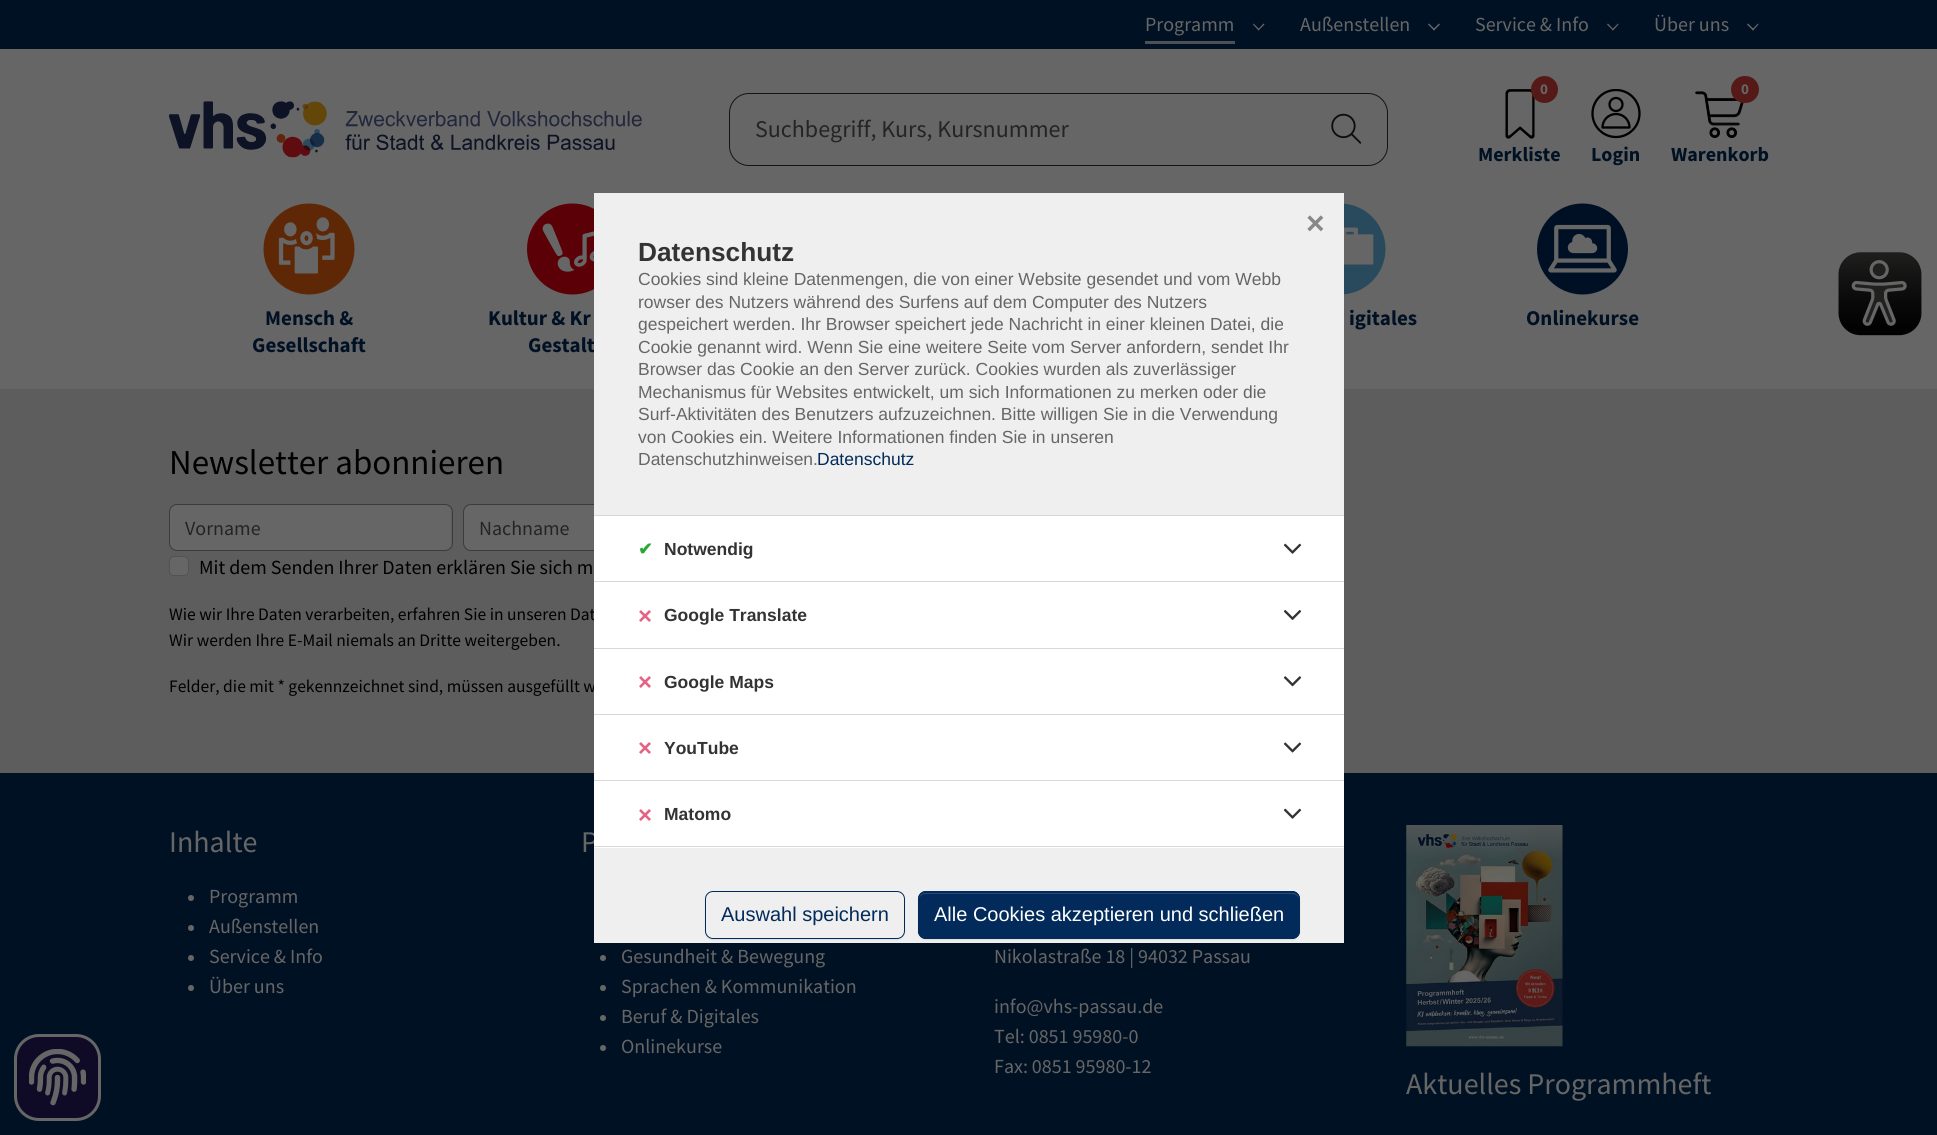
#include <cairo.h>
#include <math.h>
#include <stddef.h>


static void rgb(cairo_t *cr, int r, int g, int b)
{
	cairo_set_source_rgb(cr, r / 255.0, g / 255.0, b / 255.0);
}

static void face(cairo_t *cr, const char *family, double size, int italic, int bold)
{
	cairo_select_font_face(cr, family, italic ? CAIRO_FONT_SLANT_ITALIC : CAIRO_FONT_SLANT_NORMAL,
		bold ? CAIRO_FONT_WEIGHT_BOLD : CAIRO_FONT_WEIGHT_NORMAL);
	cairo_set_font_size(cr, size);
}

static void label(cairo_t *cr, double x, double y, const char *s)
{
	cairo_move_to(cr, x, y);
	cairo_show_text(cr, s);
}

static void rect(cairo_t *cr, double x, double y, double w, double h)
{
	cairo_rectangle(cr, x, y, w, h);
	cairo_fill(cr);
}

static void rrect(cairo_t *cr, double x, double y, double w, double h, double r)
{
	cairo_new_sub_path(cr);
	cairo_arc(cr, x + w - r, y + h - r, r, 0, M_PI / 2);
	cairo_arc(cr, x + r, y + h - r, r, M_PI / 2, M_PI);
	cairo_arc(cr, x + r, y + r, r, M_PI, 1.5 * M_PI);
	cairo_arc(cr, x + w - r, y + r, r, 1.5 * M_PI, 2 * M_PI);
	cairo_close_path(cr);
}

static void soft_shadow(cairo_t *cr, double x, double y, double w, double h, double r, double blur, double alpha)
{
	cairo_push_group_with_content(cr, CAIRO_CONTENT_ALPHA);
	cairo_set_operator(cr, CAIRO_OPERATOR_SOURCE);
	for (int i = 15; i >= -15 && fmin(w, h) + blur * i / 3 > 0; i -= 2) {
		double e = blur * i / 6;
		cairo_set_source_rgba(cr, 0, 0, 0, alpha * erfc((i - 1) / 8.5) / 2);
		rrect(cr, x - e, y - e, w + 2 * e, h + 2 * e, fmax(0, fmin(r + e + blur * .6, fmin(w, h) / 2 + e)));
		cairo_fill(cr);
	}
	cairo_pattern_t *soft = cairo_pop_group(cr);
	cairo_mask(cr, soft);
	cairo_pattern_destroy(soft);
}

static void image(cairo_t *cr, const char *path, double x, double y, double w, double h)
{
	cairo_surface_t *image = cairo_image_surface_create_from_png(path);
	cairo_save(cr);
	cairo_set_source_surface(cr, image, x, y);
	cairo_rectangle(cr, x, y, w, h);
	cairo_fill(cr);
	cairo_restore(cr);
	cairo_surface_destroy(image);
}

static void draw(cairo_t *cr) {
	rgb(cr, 102, 102, 102);
	cairo_paint(cr);
	rgb(cr, 1, 17, 36);
	rect(cr, 0, 0, 1937, 49);
	face(cr, "Source Sans Pro", 20, 0, 0);
	rgb(cr, 102, 102, 102);
	label(cr, 1145, 31, "Programm");
	rgb(cr, 77, 81, 86);
	rect(cr, 1145, 41, 90, 3);
	rgb(cr, 102, 102, 102);
	cairo_new_path(cr);
	cairo_move_to(cr, 1258.5, 30.5);
	cairo_line_to(cr, 1253, 24.5);
	cairo_line_to(cr, 1253.5, 23.5);
	cairo_line_to(cr, 1259.5, 29.5);
	cairo_close_path(cr);
	cairo_fill(cr);
	cairo_new_path(cr);
	cairo_move_to(cr, 1258.5, 30.5);
	cairo_line_to(cr, 1258, 29.5);
	cairo_line_to(cr, 1263.5, 23.5);
	cairo_line_to(cr, 1264.5, 24.5);
	cairo_close_path(cr);
	cairo_fill(cr);
	label(cr, 1300, 31, "Außenstellen");
	cairo_new_path(cr);
	cairo_move_to(cr, 1434, 30.5);
	cairo_line_to(cr, 1428, 24.5);
	cairo_line_to(cr, 1429, 23.5);
	cairo_line_to(cr, 1435, 29.5);
	cairo_close_path(cr);
	cairo_fill(cr);
	cairo_new_path(cr);
	cairo_move_to(cr, 1434, 30.5);
	cairo_line_to(cr, 1433, 29.5);
	cairo_line_to(cr, 1439, 23.5);
	cairo_line_to(cr, 1440, 24.5);
	cairo_close_path(cr);
	cairo_fill(cr);
	label(cr, 1475, 31, "Service & Info");
	cairo_new_path(cr);
	cairo_move_to(cr, 1613, 30.5);
	cairo_line_to(cr, 1607, 24.5);
	cairo_line_to(cr, 1608, 23.5);
	cairo_line_to(cr, 1613.5, 29.5);
	cairo_close_path(cr);
	cairo_fill(cr);
	cairo_new_path(cr);
	cairo_move_to(cr, 1613, 30.5);
	cairo_line_to(cr, 1612, 29.5);
	cairo_line_to(cr, 1618, 23.5);
	cairo_line_to(cr, 1618.5, 24.5);
	cairo_close_path(cr);
	cairo_fill(cr);
	label(cr, 1654, 31, "Über uns");
	cairo_new_path(cr);
	cairo_move_to(cr, 1753, 30.5);
	cairo_line_to(cr, 1747, 24.5);
	cairo_line_to(cr, 1748, 23.5);
	cairo_line_to(cr, 1754, 29.5);
	cairo_close_path(cr);
	cairo_fill(cr);
	cairo_new_path(cr);
	cairo_move_to(cr, 1753, 30.5);
	cairo_line_to(cr, 1752, 29.5);
	cairo_line_to(cr, 1758, 23.5);
	cairo_line_to(cr, 1758.5, 24.5);
	cairo_close_path(cr);
	cairo_fill(cr);
	image(cr, "image0.png", 169, 101, 473, 57);
	rrect(cr, 729.5, 93.5, 658, 72, 19.5);
	rgb(cr, 20, 20, 20);
	cairo_set_line_width(cr, 1);
	cairo_stroke(cr);
	face(cr, "Source Sans Pro", 24, 0, 0);
	rgb(cr, 36, 36, 36);
	label(cr, 755, 137, "Suchbegriff, Kurs, Kursnummer");
	image(cr, "image1.png", 1331, 113, 31, 31);
	image(cr, "image2.png", 1505, 89, 30, 50);
	rgb(cr, 85, 26, 23);
	cairo_arc(cr, 1544.5, 89.5, 13.5, 0, 2 * M_PI);
	cairo_fill(cr);
	face(cr, "Source Sans Pro", 15, 0, 1);
	rgb(cr, 102, 102, 102);
	label(cr, 1540, 94, "0");
	face(cr, "Source Sans Pro", 20, 0, 1);
	rgb(cr, 1, 17, 36);
	label(cr, 1478, 161, "Merkliste");
	cairo_new_path(cr);
	cairo_arc(cr, 1616, 104.5, 6.5, 0, 2 * M_PI);
	rgb(cr, 0, 0, 0);
	cairo_set_line_width(cr, 2.3);
	cairo_stroke(cr);
	cairo_new_path(cr);
	cairo_move_to(cr, 1616, 114);
	cairo_curve_to(cr, 1608.5, 114, 1602.5, 120, 1602.5, 127.5);
	cairo_line_to(cr, 1629.5, 127.5);
	cairo_curve_to(cr, 1629.5, 120, 1623.5, 114, 1616, 114);
	cairo_close_path(cr);
	cairo_set_line_cap(cr, CAIRO_LINE_CAP_ROUND);
	cairo_set_line_join(cr, CAIRO_LINE_JOIN_ROUND);
	cairo_stroke(cr);
	cairo_save(cr);
	cairo_rectangle(cr, 1591, 89, 50, 50);
	cairo_clip(cr);
	cairo_arc(cr, 1616, 113.5, 23.5, 0, 2 * M_PI);
	cairo_set_line_cap(cr, CAIRO_LINE_CAP_BUTT);
	cairo_set_line_join(cr, CAIRO_LINE_JOIN_MITER);
	cairo_stroke(cr);
	cairo_restore(cr);
	rgb(cr, 1, 17, 36);
	label(cr, 1591, 161, "Login");
	image(cr, "image3.png", 1695, 91, 49, 47);
	rgb(cr, 85, 26, 23);
	rrect(cr, 1731, 76, 28, 27, 13.5);
	cairo_fill(cr);
	face(cr, "Source Sans Pro", 15, 0, 1);
	rgb(cr, 102, 102, 102);
	label(cr, 1741, 94, "0");
	face(cr, "Source Sans Pro", 20, 0, 1);
	rgb(cr, 1, 17, 36);
	label(cr, 1671, 161, "Warenkorb");
	image(cr, "image4.png", 263, 203, 92, 92);
	face(cr, "Source Sans Pro", 21, 0, 1);
	label(cr, 265, 325, "Mensch &");
	label(cr, 252, 352, "Gesellschaft");
	image(cr, "image5.png", 527, 203, 67, 92);
	label(cr, 488, 325, "Kultur & Kr");
	label(cr, 528, 352, "Gestalt");
	image(cr, "image6.png", 1344, 203, 42, 92);
	label(cr, 1349, 325, "igitales");
	image(cr, "image7.png", 1537, 203, 91, 92);
	label(cr, 1526, 325, "Onlinekurse");
	image(cr, "image8.png", 1838, 252, 84, 84);
	rect(cr, 0, 773, 1937, 362);
	rgb(cr, 15, 11, 39);
	rrect(cr, 15.5, 1035.5, 84, 84, 23.5);
	cairo_fill_preserve(cr);
	rgb(cr, 102, 102, 102);
	cairo_set_line_width(cr, 3);
	cairo_set_line_cap(cr, CAIRO_LINE_CAP_BUTT);
	cairo_set_line_join(cr, CAIRO_LINE_JOIN_MITER);
	cairo_stroke(cr);
	image(cr, "image9.png", 29, 1049, 57, 57);
	rgb(cr, 93, 93, 93);
	rect(cr, 0, 389, 1937, 384);
	face(cr, "Source Sans Pro", 35, 0, 0);
	rgb(cr, 0, 0, 0);
	label(cr, 169, 474, "Newsletter abonnieren");
	rgb(cr, 102, 102, 102);
	rrect(cr, 170, 505, 281, 45, 6);
	cairo_fill(cr);
	rrect(cr, 169.5, 504.5, 283, 46, 7.5);
	rgb(cr, 60, 60, 60);
	cairo_set_line_width(cr, 1);
	cairo_stroke(cr);
	face(cr, "Source Sans Pro", 20, 0, 0);
	rgb(cr, 36, 36, 36);
	label(cr, 185, 535, "Vorname");
	rgb(cr, 102, 102, 102);
	rrect(cr, 464, 505, 281, 45, 6);
	cairo_fill(cr);
	rrect(cr, 463.5, 504.5, 282, 46, 7.5);
	rgb(cr, 60, 60, 60);
	cairo_stroke(cr);
	rgb(cr, 36, 36, 36);
	label(cr, 479, 535, "Nachname");
	rgb(cr, 102, 102, 102);
	rrect(cr, 169.5, 556.5, 19, 19, 4.5);
	cairo_fill_preserve(cr);
	rgb(cr, 82, 82, 82);
	cairo_stroke(cr);
	rgb(cr, 0, 0, 0);
	label(cr, 199, 574, "Mit dem Senden Ihrer Daten erklären Sie sich m");
	face(cr, "Source Sans Pro", 17.5, 0, 0);
	label(cr, 169, 620, "Wie wir Ihre Daten verarbeiten, erfahren Sie in unseren Dat");
	label(cr, 169, 646, "Wir werden Ihre E-Mail niemals an Dritte weitergeben.");
	label(cr, 169, 692, "Felder, die mit * gekennzeichnet sind, müssen ausgefüllt w");
	face(cr, "Source Sans Pro", 30, 0, 0);
	rgb(cr, 102, 102, 102);
	label(cr, 169, 852, "Inhalte");
	cairo_new_path(cr);
	cairo_arc(cr, 191, 898, 3, 0, 2 * M_PI);
	cairo_fill(cr);
	face(cr, "Source Sans Pro", 20, 0, 0);
	label(cr, 209, 903, "Programm");
	cairo_new_path(cr);
	cairo_arc(cr, 191, 928, 3, 0, 2 * M_PI);
	cairo_fill(cr);
	label(cr, 209, 933, "Außenstellen");
	cairo_new_path(cr);
	cairo_arc(cr, 191, 958, 3, 0, 2 * M_PI);
	cairo_fill(cr);
	label(cr, 209, 963, "Service & Info");
	cairo_new_path(cr);
	cairo_arc(cr, 191, 988, 3, 0, 2 * M_PI);
	cairo_fill(cr);
	label(cr, 209, 993, "Über uns");
	face(cr, "Source Sans Pro", 30, 0, 0);
	label(cr, 581, 852, "P");
	cairo_new_path(cr);
	cairo_arc(cr, 603, 958, 3, 0, 2 * M_PI);
	cairo_fill(cr);
	face(cr, "Source Sans Pro", 20, 0, 0);
	label(cr, 621, 963, "Gesundheit & Bewegung");
	cairo_new_path(cr);
	cairo_arc(cr, 603, 988, 3, 0, 2 * M_PI);
	cairo_fill(cr);
	label(cr, 621, 993, "Sprachen & Kommunikation");
	cairo_new_path(cr);
	cairo_arc(cr, 603, 1018, 3, 0, 2 * M_PI);
	cairo_fill(cr);
	label(cr, 621, 1023, "Beruf & Digitales");
	cairo_new_path(cr);
	cairo_arc(cr, 603, 1048, 3, 0, 2 * M_PI);
	cairo_fill(cr);
	label(cr, 621, 1053, "Onlinekurse");
	label(cr, 994, 963, "Nikolastraße 18 | 94032 Passau");
	label(cr, 994, 1013, "info@vhs-passau.de");
	label(cr, 994, 1043, "Tel: 0851 95980-0");
	label(cr, 994, 1073, "Fax: 0851 95980-12");
	image(cr, "image10.png", 1406, 825, 157, 222);
	face(cr, "Source Sans Pro", 30, 0, 0);
	label(cr, 1406, 1094, "Aktuelles Programmheft");
	rgb(cr, 239, 239, 239);
	rect(cr, 594, 193, 750, 750);
	rgb(cr, 216, 216, 216);
	rect(cr, 594, 515, 750, 1);
	face(cr, "Liberation Sans", 32, 0, 1);
	rgb(cr, 136, 136, 136);
	label(cr, 1306, 234, "×");
	face(cr, "Liberation Sans", 26.25, 0, 1);
	rgb(cr, 51, 51, 51);
	label(cr, 638, 261, "Datenschutz");
	face(cr, "Liberation Sans", 17.5, 0, 0);
	rgb(cr, 102, 102, 102);
	label(cr, 638, 285, "Cookies sind kleine Datenmengen, die von einer Website gesendet und vom Webb");
	label(cr, 638, 308, "rowser des Nutzers während des Surfens auf dem Computer des Nutzers");
	label(cr, 638, 330, "gespeichert werden. Ihr Browser speichert jede Nachricht in einer kleinen Datei, die");
	label(cr, 638, 353, "Cookie genannt wird. Wenn Sie eine weitere Seite vom Server anfordern, sendet Ihr");
	label(cr, 638, 375, "Browser das Cookie an den Server zurück. Cookies wurden als zuverlässiger");
	label(cr, 638, 398, "Mechanismus für Websites entwickelt, um sich Informationen zu merken oder die");
	label(cr, 638, 420, "Surf-Aktivitäten des Benutzers aufzuzeichnen. Bitte willigen Sie in die Verwendung");
	label(cr, 638, 443, "von Cookies ein. Weitere Informationen finden Sie in unseren");
	label(cr, 638, 465, "Datenschutzhinweisen.");
	rgb(cr, 2, 42, 91);
	label(cr, 817, 465, "Datenschutz");
	rgb(cr, 255, 255, 255);
	rect(cr, 594, 516, 750, 332);
	rgb(cr, 216, 216, 216);
	rect(cr, 594, 581, 750, 1);
	face(cr, "DejaVu Sans", 17.5, 0, 1);
	rgb(cr, 40, 168, 52);
	label(cr, 638, 555, "✔");
	face(cr, "Liberation Sans", 17.5, 0, 1);
	rgb(cr, 51, 51, 51);
	label(cr, 664, 555, "Notwendig");
	image(cr, "image11.png", 1283, 543, 19, 11);
	rgb(cr, 216, 216, 216);
	rect(cr, 594, 648, 750, 1);
	face(cr, "Liberation Sans", 24, 0, 1);
	rgb(cr, 229, 99, 133);
	label(cr, 638, 624, "×");
	face(cr, "Liberation Sans", 17.5, 0, 1);
	rgb(cr, 51, 51, 51);
	label(cr, 664, 621, "Google Translate");
	image(cr, "image12.png", 1283, 610, 19, 10);
	rgb(cr, 216, 216, 216);
	rect(cr, 594, 714, 750, 1);
	face(cr, "Liberation Sans", 24, 0, 1);
	rgb(cr, 229, 99, 133);
	label(cr, 638, 690, "×");
	face(cr, "Liberation Sans", 17.5, 0, 1);
	rgb(cr, 51, 51, 51);
	label(cr, 664, 688, "Google Maps");
	image(cr, "image13.png", 1283, 676, 19, 11);
	rgb(cr, 216, 216, 216);
	rect(cr, 594, 780, 750, 1);
	face(cr, "Liberation Sans", 24, 0, 1);
	rgb(cr, 229, 99, 133);
	label(cr, 638, 756, "×");
	face(cr, "Liberation Sans", 17.5, 0, 1);
	rgb(cr, 51, 51, 51);
	label(cr, 664, 754, "YouTube");
	image(cr, "image14.png", 1283, 742, 19, 11);
	rgb(cr, 216, 216, 216);
	rect(cr, 594, 846, 750, 1);
	face(cr, "Liberation Sans", 24, 0, 1);
	rgb(cr, 229, 99, 133);
	label(cr, 638, 823, "×");
	face(cr, "Liberation Sans", 17.5, 0, 1);
	rgb(cr, 51, 51, 51);
	label(cr, 664, 820, "Matomo");
	image(cr, "image11.png", 1283, 808, 19, 11);
	cairo_save(cr);
	cairo_set_fill_rule(cr, CAIRO_FILL_RULE_EVEN_ODD);
	cairo_new_path(cr);
	cairo_move_to(cr, 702, 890);
	cairo_line_to(cr, 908, 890);
	cairo_line_to(cr, 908, 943);
	cairo_line_to(cr, 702, 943);
	cairo_close_path(cr);
	cairo_move_to(cr, 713, 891);
	cairo_line_to(cr, 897, 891);
	cairo_curve_to(cr, 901.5, 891, 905, 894.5, 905, 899);
	cairo_line_to(cr, 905, 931);
	cairo_curve_to(cr, 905, 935.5, 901.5, 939, 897, 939);
	cairo_line_to(cr, 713, 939);
	cairo_curve_to(cr, 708.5, 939, 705, 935.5, 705, 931);
	cairo_line_to(cr, 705, 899);
	cairo_curve_to(cr, 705, 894.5, 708.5, 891, 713, 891);
	cairo_close_path(cr);
	cairo_clip(cr);
	rgb(cr, 0, 0, 0);
	soft_shadow(cr, 705, 893, 200, 47, 8, 0.5, 0.07);
	cairo_restore(cr);
	rrect(cr, 705.5, 891.5, 199, 47, 7.5);
	rgb(cr, 2, 42, 91);
	cairo_stroke(cr);
	face(cr, "Liberation Sans", 20, 0, 0);
	label(cr, 721, 921, "Auswahl speichern");
	rgb(cr, 0, 0, 0);
	soft_shadow(cr, 918, 893, 382, 47, 8, 0.5, 0.07);
	rgb(cr, 2, 42, 91);
	rrect(cr, 918, 891, 382, 48, 8);
	cairo_fill(cr);
	rgb(cr, 40, 74, 116);
	cairo_new_path(cr);
	cairo_move_to(cr, 925, 894);
	cairo_line_to(cr, 1292, 894);
	cairo_curve_to(cr, 1296, 894, 1299, 897, 1299, 900);
	cairo_curve_to(cr, 1299, 896, 1297, 893, 1293, 893);
	cairo_line_to(cr, 925, 893);
	cairo_curve_to(cr, 921, 893, 919, 896, 919, 900);
	cairo_curve_to(cr, 919, 897, 922, 894, 925, 894);
	cairo_close_path(cr);
	cairo_fill(cr);
	rrect(cr, 918.5, 891.5, 381, 47, 7.5);
	rgb(cr, 2, 42, 91);
	cairo_stroke(cr);
	rgb(cr, 255, 255, 255);
	label(cr, 934, 921, "Alle Cookies akzeptieren und schließen");
}

int main(void) {
	cairo_surface_t *surface = cairo_image_surface_create(CAIRO_FORMAT_RGB24, 1937, 1135);
	cairo_t *cr = cairo_create(surface);
	cairo_font_options_t *options = cairo_font_options_create();
	cairo_font_options_set_hint_metrics(options, CAIRO_HINT_METRICS_OFF);
	cairo_font_options_set_hint_style(options, CAIRO_HINT_STYLE_NONE);
	cairo_set_font_options(cr, options);
	cairo_set_miter_limit(cr, 4);
	draw(cr);
	cairo_surface_write_to_png(surface, "render.png");
	cairo_font_options_destroy(options);
	cairo_destroy(cr);
	cairo_surface_destroy(surface);
	return 0;
}
